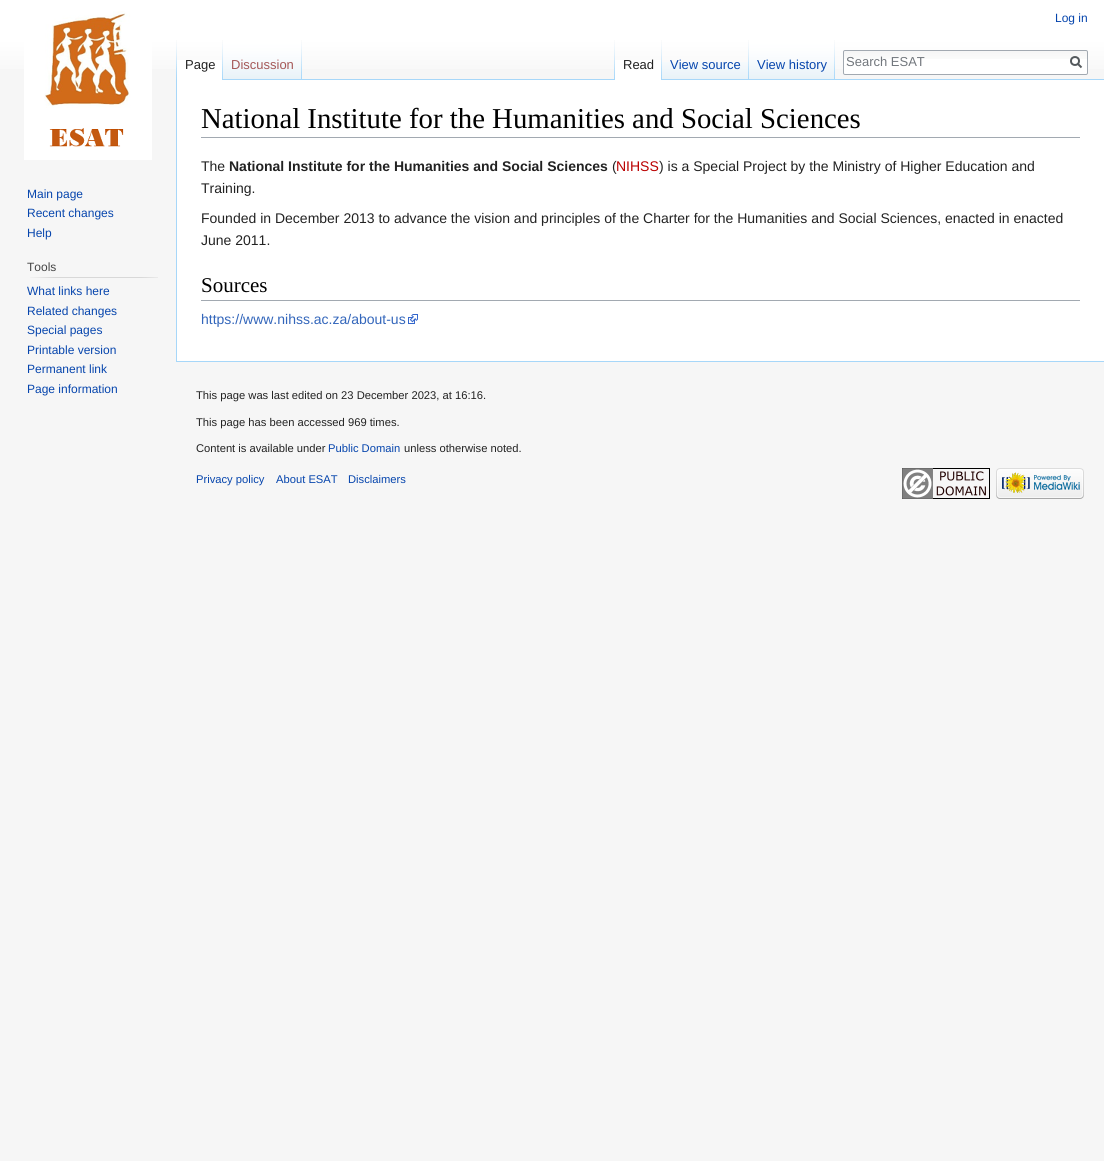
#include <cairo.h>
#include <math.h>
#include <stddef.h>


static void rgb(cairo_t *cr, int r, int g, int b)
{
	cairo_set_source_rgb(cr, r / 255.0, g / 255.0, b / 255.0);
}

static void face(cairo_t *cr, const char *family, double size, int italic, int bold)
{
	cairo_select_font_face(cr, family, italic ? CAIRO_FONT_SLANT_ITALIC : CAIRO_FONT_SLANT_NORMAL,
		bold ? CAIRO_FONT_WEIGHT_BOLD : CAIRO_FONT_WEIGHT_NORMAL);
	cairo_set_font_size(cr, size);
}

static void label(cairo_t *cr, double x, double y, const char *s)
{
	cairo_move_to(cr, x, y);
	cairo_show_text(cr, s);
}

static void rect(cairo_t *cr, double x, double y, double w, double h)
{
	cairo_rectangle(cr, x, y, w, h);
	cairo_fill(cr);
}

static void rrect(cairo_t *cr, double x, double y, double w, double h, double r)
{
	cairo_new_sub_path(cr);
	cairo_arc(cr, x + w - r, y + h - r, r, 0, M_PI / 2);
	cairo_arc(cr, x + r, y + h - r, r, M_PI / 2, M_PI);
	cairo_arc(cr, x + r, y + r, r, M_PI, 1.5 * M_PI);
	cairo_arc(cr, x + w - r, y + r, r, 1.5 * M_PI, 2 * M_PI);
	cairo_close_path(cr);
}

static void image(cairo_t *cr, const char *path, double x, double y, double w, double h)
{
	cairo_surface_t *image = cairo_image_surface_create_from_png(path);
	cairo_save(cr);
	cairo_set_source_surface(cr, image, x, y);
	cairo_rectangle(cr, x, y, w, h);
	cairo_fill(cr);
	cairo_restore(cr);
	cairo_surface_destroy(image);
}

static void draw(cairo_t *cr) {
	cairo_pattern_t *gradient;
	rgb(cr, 246, 246, 246);
	cairo_paint(cr);
	gradient = cairo_pattern_create_linear(552, 0, 552, 80);
	cairo_pattern_add_color_stop_rgba(gradient, 0.5, 1, 1, 1, 1);
	cairo_pattern_add_color_stop_rgba(gradient, 1, 0.965, 0.965, 0.965, 1);
	cairo_set_source(cr, gradient);
	cairo_pattern_destroy(gradient);
	rect(cr, 0, 0, 1104, 69);
	face(cr, "Liberation Sans", 12, 0, 0);
	rgb(cr, 6, 69, 173);
	label(cr, 1055, 22, "Log in");
	image(cr, "image0.png", 176, 40, 1, 39);
	rgb(cr, 255, 255, 255);
	rect(cr, 177, 60, 45, 20);
	image(cr, "image1.png", 222, 40, 1, 40);
	face(cr, "Liberation Sans", 13, 0, 0);
	rgb(cr, 34, 34, 34);
	label(cr, 185, 69, "Page");
	image(cr, "image2.png", 223, 40, 78, 39);
	image(cr, "image0.png", 301, 40, 1, 39);
	rgb(cr, 165, 88, 88);
	label(cr, 231, 69, "Discussion");
	image(cr, "image0.png", 614, 40, 1, 39);
	rgb(cr, 167, 215, 249);
	rect(cr, 223, 79, 881, 1);
	rgb(cr, 255, 255, 255);
	rect(cr, 615, 60, 46, 20);
	image(cr, "image1.png", 661, 40, 1, 40);
	rgb(cr, 34, 34, 34);
	label(cr, 623, 69, "Read");
	image(cr, "image3.png", 662, 62, 86, 17);
	image(cr, "image0.png", 748, 40, 1, 39);
	rgb(cr, 6, 69, 173);
	label(cr, 670, 69, "View source");
	image(cr, "image4.png", 749, 40, 85, 39);
	image(cr, "image0.png", 834, 40, 1, 39);
	label(cr, 757, 69, "View history");
	rgb(cr, 255, 255, 255);
	rrect(cr, 843, 50, 245, 25, 2);
	cairo_fill(cr);
	image(cr, "image5.png", 843, 51, 245, 8);
	rrect(cr, 843.5, 50.5, 244, 24, 1.5);
	rgb(cr, 162, 169, 177);
	cairo_set_line_width(cr, 1);
	cairo_stroke(cr);
	rgb(cr, 114, 119, 125);
	label(cr, 846, 66, "Search ESAT");
	cairo_new_path(cr);
	cairo_move_to(cr, 1081.5, 67.5);
	cairo_line_to(cr, 1077.5, 63.5);
	rgb(cr, 84, 89, 93);
	cairo_set_line_width(cr, 2);
	cairo_stroke(cr);
	cairo_arc(cr, 1075, 61, 4, 0, 2 * M_PI);
	cairo_stroke(cr);
	image(cr, "image6.png", 24, 11, 128, 149);
	face(cr, "Liberation Sans", 12, 0, 0);
	rgb(cr, 6, 69, 173);
	label(cr, 27, 198, "Main page");
	label(cr, 27, 217, "Recent changes");
	label(cr, 27, 237, "Help");
	rgb(cr, 68, 68, 68);
	label(cr, 27, 271, "Tools");
	image(cr, "image7.png", 30, 277, 128, 1);
	rgb(cr, 6, 69, 173);
	label(cr, 27, 295, "What links here");
	label(cr, 27, 315, "Related changes");
	label(cr, 27, 334, "Special pages");
	label(cr, 27, 354, "Printable version");
	label(cr, 27, 373, "Permanent link");
	label(cr, 27, 393, "Page information");
	rgb(cr, 255, 255, 255);
	rect(cr, 177, 80, 927, 281);
	rgb(cr, 167, 215, 249);
	rect(cr, 176, 361, 928, 1);
	rect(cr, 176, 79, 1, 283);
	rgb(cr, 162, 169, 177);
	rect(cr, 201, 137, 879, 1);
	face(cr, "Liberation Serif", 28.8, 0, 0);
	rgb(cr, 0, 0, 0);
	label(cr, 201, 128, "National Institute for the Humanities and Social Sciences");
	face(cr, "Liberation Sans", 14, 0, 0);
	rgb(cr, 34, 34, 34);
	label(cr, 201, 171, "The");
	face(cr, "Liberation Sans", 14, 0, 1);
	label(cr, 229, 171, "National Institute for the Humanities and Social Sciences");
	face(cr, "Liberation Sans", 14, 0, 0);
	label(cr, 612, 171, "(");
	rgb(cr, 186, 0, 0);
	label(cr, 616, 171, "NIHSS");
	rgb(cr, 34, 34, 34);
	label(cr, 659, 171, ") is a Special Project by the Ministry of Higher Education and");
	label(cr, 201, 193, "Training.");
	label(cr, 201, 223, "Founded in December 2013 to advance the vision and principles of the Charter for the Humanities and Social Sciences, enacted in enacted");
	label(cr, 201, 245, "June 2011.");
	rgb(cr, 162, 169, 177);
	rect(cr, 201, 300, 879, 1);
	face(cr, "Liberation Serif", 21, 0, 0);
	rgb(cr, 0, 0, 0);
	label(cr, 201, 292, "Sources");
	face(cr, "Liberation Sans", 14, 0, 0);
	rgb(cr, 51, 102, 187);
	label(cr, 201, 324, "https://www.nihss.ac.za/about-us");
	image(cr, "image8.png", 408, 314, 10, 10);
	face(cr, "Liberation Sans", 11.2, 0, 0);
	rgb(cr, 34, 34, 34);
	label(cr, 196, 399, "This page was last edited on 23 December 2023, at 16:16.");
	label(cr, 196, 426, "This page has been accessed 969 times.");
	label(cr, 196, 452, "Content is available under");
	rgb(cr, 6, 69, 173);
	label(cr, 328, 452, "Public Domain");
	rgb(cr, 34, 34, 34);
	label(cr, 404, 452, "unless otherwise noted.");
	rgb(cr, 6, 69, 173);
	label(cr, 196, 483, "Privacy policy");
	label(cr, 276, 483, "About ESAT");
	label(cr, 348, 483, "Disclaimers");
	image(cr, "image9.png", 902, 468, 88, 31);
	image(cr, "image10.png", 996, 468, 88, 31);
}

int main(void) {
	cairo_surface_t *surface = cairo_image_surface_create(CAIRO_FORMAT_RGB24, 1104, 1161);
	cairo_t *cr = cairo_create(surface);
	cairo_font_options_t *options = cairo_font_options_create();
	cairo_font_options_set_hint_metrics(options, CAIRO_HINT_METRICS_OFF);
	cairo_font_options_set_hint_style(options, CAIRO_HINT_STYLE_NONE);
	cairo_set_font_options(cr, options);
	cairo_set_miter_limit(cr, 4);
	draw(cr);
	cairo_surface_write_to_png(surface, "render.png");
	cairo_font_options_destroy(options);
	cairo_destroy(cr);
	cairo_surface_destroy(surface);
	return 0;
}
